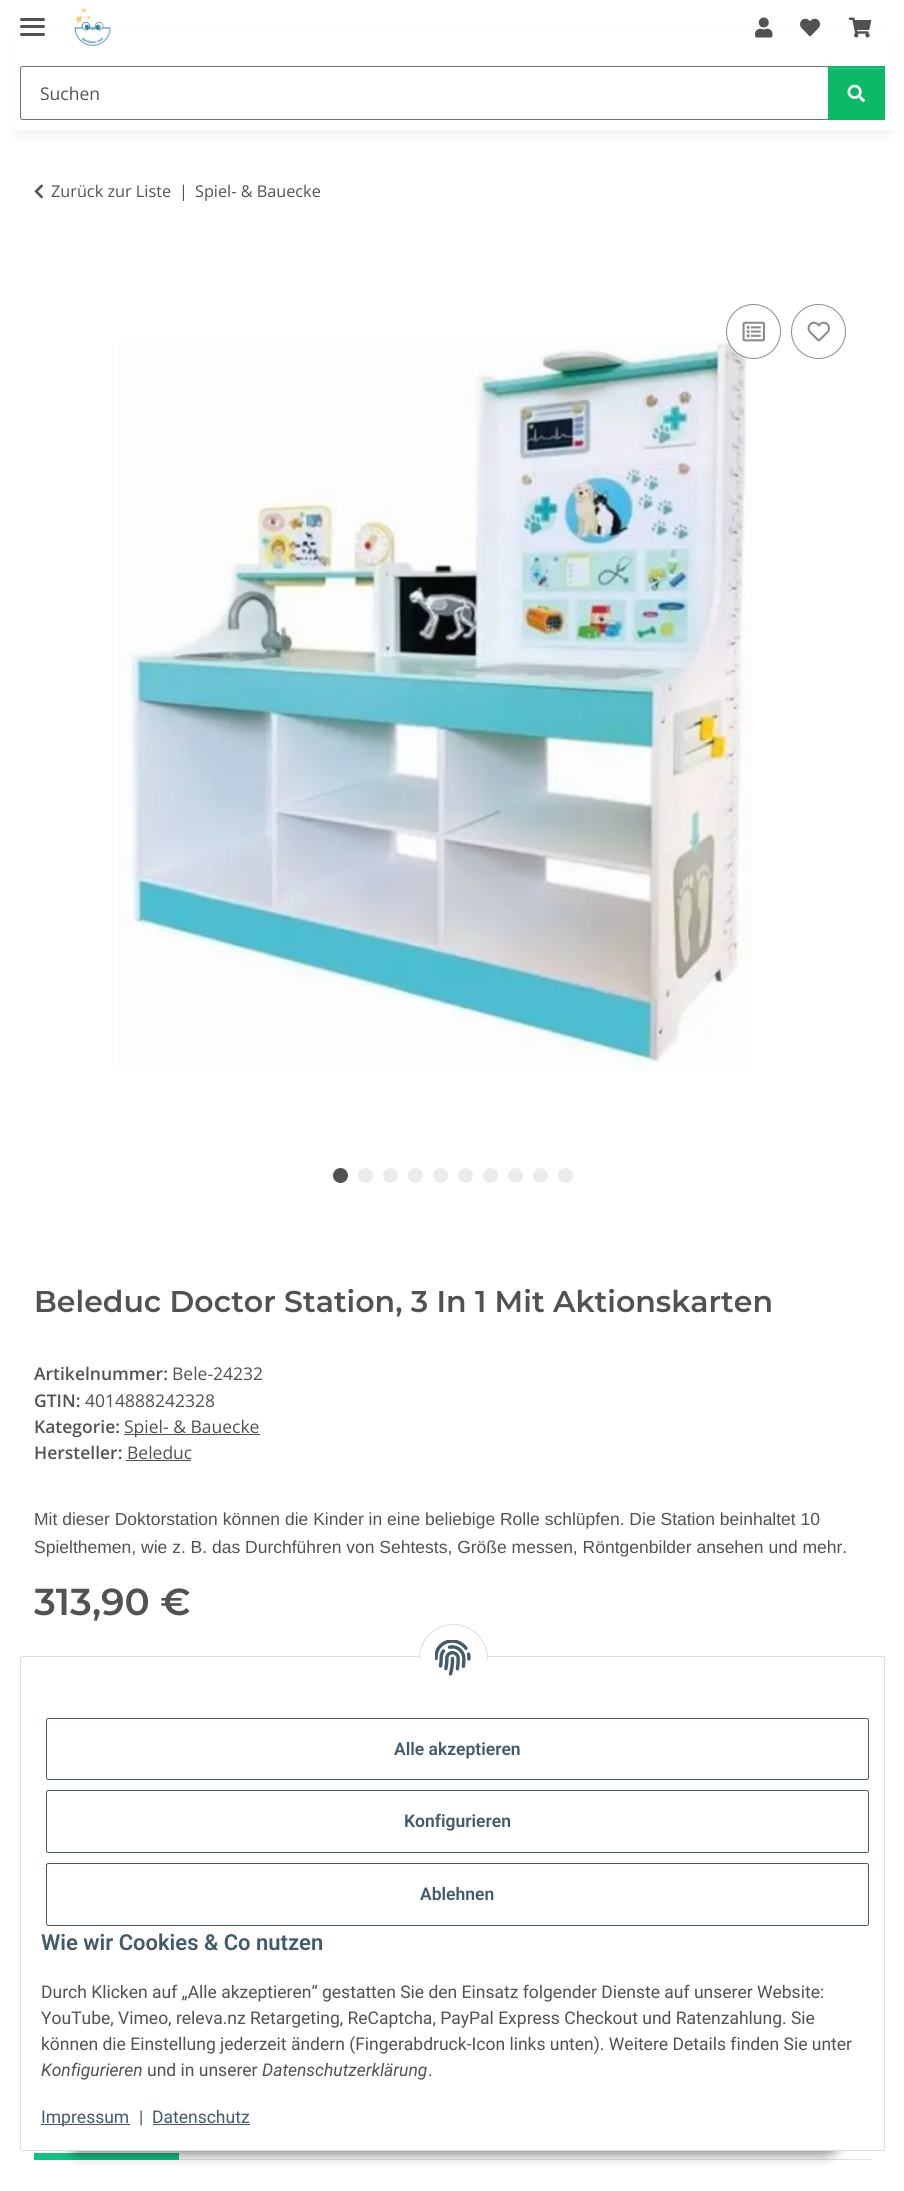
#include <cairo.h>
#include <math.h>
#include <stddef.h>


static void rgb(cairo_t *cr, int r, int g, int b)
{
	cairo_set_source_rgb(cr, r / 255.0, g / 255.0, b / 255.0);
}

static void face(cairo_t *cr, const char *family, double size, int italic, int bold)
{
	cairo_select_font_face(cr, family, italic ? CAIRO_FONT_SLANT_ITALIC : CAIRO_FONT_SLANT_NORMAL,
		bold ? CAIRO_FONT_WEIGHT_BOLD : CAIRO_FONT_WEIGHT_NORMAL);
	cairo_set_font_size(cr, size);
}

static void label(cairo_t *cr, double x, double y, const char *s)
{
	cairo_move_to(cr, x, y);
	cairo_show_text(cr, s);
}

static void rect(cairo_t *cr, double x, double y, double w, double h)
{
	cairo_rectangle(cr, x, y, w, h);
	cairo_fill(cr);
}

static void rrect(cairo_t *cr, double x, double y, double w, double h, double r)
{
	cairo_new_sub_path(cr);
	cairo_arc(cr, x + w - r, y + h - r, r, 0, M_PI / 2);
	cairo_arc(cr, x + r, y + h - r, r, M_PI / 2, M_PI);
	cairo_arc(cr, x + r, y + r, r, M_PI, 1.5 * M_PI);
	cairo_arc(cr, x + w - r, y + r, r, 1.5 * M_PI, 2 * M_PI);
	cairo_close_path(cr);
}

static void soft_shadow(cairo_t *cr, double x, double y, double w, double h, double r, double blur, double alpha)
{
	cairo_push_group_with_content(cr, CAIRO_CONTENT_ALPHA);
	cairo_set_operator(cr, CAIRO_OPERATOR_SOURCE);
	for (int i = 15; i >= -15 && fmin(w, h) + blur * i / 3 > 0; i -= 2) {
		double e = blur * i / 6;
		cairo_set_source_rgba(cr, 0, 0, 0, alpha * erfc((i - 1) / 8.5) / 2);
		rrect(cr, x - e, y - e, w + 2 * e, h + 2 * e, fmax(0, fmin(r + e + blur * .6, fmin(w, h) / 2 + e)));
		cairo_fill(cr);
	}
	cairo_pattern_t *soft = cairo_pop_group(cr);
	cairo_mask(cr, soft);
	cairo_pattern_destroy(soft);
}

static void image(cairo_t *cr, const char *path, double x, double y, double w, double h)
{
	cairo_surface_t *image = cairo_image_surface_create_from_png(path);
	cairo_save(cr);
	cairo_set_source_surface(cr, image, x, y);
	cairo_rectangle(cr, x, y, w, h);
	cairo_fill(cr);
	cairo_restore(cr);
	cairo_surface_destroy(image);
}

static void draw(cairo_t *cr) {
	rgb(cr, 255, 255, 255);
	cairo_paint(cr);
	rgb(cr, 0, 0, 0);
	soft_shadow(cr, 15, 35, 875, 100, 0, 5.5, 0.06);
	rgb(cr, 255, 255, 255);
	rect(cr, 10, 30, 885, 100);
	rgb(cr, 82, 82, 82);
	rrect(cr, 20, 25, 25, 3, 1.5);
	cairo_fill(cr);
	rrect(cr, 20, 18, 25, 3, 1.5);
	cairo_fill(cr);
	rrect(cr, 20, 33, 25, 3, 1.5);
	cairo_fill(cr);
	image(cr, "image0.png", 74, 7, 37, 40);
	image(cr, "image1.png", 755, 17, 18, 21);
	image(cr, "image2.png", 800, 18, 20, 19);
	image(cr, "image3.png", 848, 17, 24, 21);
	rrect(cr, 20.5, 66.5, 808, 53, 2);
	rgb(cr, 112, 112, 112);
	cairo_set_line_width(cr, 1);
	cairo_stroke(cr);
	face(cr, "Open Sans", 17.5, 0, 0);
	rgb(cr, 82, 82, 82);
	label(cr, 40, 100, "Suchen");
	rgb(cr, 0, 0, 0);
	soft_shadow(cr, 828, 68, 57, 53, 0, 0.5, 0.07);
	rgb(cr, 13, 184, 103);
	rect(cr, 828, 66, 57, 54);
	rgb(cr, 49, 195, 126);
	rect(cr, 829, 68, 55, 1);
	image(cr, "image4.png", 847, 84, 18, 19);
	image(cr, "image5.png", 34, 184, 9, 15);
	face(cr, "Open Sans", 16.25, 0, 0);
	rgb(cr, 82, 82, 82);
	label(cr, 51, 197, "Zurück zur Liste");
	label(cr, 179, 197, "|");
	label(cr, 195, 197, "Spiel- & Bauecke");
	image(cr, "image8.png", 117, 342, 635, 729);
	cairo_set_source_rgba(cr, 1, 1, 1, 0.8);
	cairo_arc(cr, 753.5, 331.5, 27.5, 0, 2 * M_PI);
	cairo_fill(cr);
	cairo_arc(cr, 753.5, 331.5, 27, 0, 2 * M_PI);
	cairo_set_source_rgba(cr, 0.439, 0.439, 0.439, 0.8);
	cairo_stroke(cr);
	image(cr, "image6.png", 742, 321, 23, 21);
	cairo_arc(cr, 818.5, 331.5, 27, 0, 2 * M_PI);
	rgb(cr, 141, 141, 141);
	cairo_stroke(cr);
	image(cr, "image7.png", 807, 321, 23, 21);
	rgb(cr, 82, 82, 82);
	cairo_arc(cr, 340.5, 1175.5, 6, 0, 2 * M_PI);
	cairo_fill_preserve(cr);
	cairo_set_line_width(cr, 3);
	cairo_stroke(cr);
	rgb(cr, 235, 235, 235);
	cairo_arc(cr, 365.5, 1175.5, 6, 0, 2 * M_PI);
	cairo_fill_preserve(cr);
	cairo_stroke(cr);
	cairo_arc(cr, 390.5, 1175.5, 6, 0, 2 * M_PI);
	cairo_fill_preserve(cr);
	cairo_stroke(cr);
	cairo_arc(cr, 415.5, 1175.5, 6, 0, 2 * M_PI);
	cairo_fill_preserve(cr);
	cairo_stroke(cr);
	cairo_arc(cr, 440.5, 1175.5, 6, 0, 2 * M_PI);
	cairo_fill_preserve(cr);
	cairo_stroke(cr);
	cairo_arc(cr, 465.5, 1175.5, 6, 0, 2 * M_PI);
	cairo_fill_preserve(cr);
	cairo_stroke(cr);
	cairo_arc(cr, 490.5, 1175.5, 6, 0, 2 * M_PI);
	cairo_fill_preserve(cr);
	cairo_stroke(cr);
	cairo_arc(cr, 515.5, 1175.5, 6, 0, 2 * M_PI);
	cairo_fill_preserve(cr);
	cairo_stroke(cr);
	cairo_arc(cr, 540.5, 1175.5, 6, 0, 2 * M_PI);
	cairo_fill_preserve(cr);
	cairo_stroke(cr);
	cairo_arc(cr, 565.5, 1175.5, 6, 0, 2 * M_PI);
	cairo_fill_preserve(cr);
	cairo_stroke(cr);
	face(cr, "Montserrat SemiBold", 30, 0, 0);
	rgb(cr, 82, 82, 82);
	label(cr, 34, 1312, "Beleduc Doctor Station, 3 In 1 Mit Aktionskarten");
	face(cr, "Open Sans SemiBold", 17.5, 0, 0);
	label(cr, 34, 1380, "Artikelnummer:");
	face(cr, "Open Sans", 17.5, 0, 0);
	label(cr, 172, 1380, "Bele-24232");
	face(cr, "Open Sans SemiBold", 17.5, 0, 0);
	label(cr, 34, 1407, "GTIN:");
	face(cr, "Open Sans", 17.5, 0, 0);
	label(cr, 85, 1407, "4014888242328");
	face(cr, "Open Sans SemiBold", 17.5, 0, 0);
	label(cr, 34, 1433, "Kategorie:");
	rect(cr, 124, 1434, 136, 1);
	face(cr, "Open Sans", 17.5, 0, 0);
	label(cr, 124, 1433, "Spiel- & Bauecke");
	face(cr, "Open Sans SemiBold", 17.5, 0, 0);
	label(cr, 34, 1459, "Hersteller:");
	face(cr, "Open Sans", 17.5, 0, 0);
	label(cr, 127, 1459, "Beleduc");
	rect(cr, 126, 1460, 65, 1);
	face(cr, "Liberation Sans", 17.5, 0, 0);
	label(cr, 34, 1525, "Mit dieser Doktorstation können die Kinder in eine beliebige Rolle schlüpfen. Die Station beinhaltet 10");
	label(cr, 34, 1553, "Spielthemen, wie z. B. das Durchführen von Sehtests, Größe messen, Röntgenbilder ansehen und mehr.");
	face(cr, "Montserrat SemiBold", 37.5, 0, 0);
	label(cr, 34, 1615, "313,90 €");
	rgb(cr, 222, 226, 230);
	rect(cr, 179, 2159, 692, 1);
	rgb(cr, 21, 192, 135);
	rect(cr, 34, 2153, 145, 7);
	rgb(cr, 0, 0, 0);
	soft_shadow(cr, 65, 2115, 776, 40, 20, 6, 0.45);
	rgb(cr, 255, 255, 255);
	rrect(cr, 20.5, 1656.5, 864, 494, 2);
	cairo_fill_preserve(cr);
	rgb(cr, 221, 221, 221);
	cairo_set_line_width(cr, 1);
	cairo_stroke(cr);
	rgb(cr, 255, 255, 255);
	cairo_arc(cr, 453.5, 1658.5, 34, 0, 2 * M_PI);
	cairo_fill_preserve(cr);
	rgb(cr, 221, 221, 221);
	cairo_stroke(cr);
	rgb(cr, 255, 255, 255);
	rect(cr, 419, 1659, 69, 34);
	image(cr, "image9.png", 435, 1640, 36, 36);
	rrect(cr, 46.5, 1718.5, 822, 61, 2);
	rgb(cr, 67, 90, 107);
	cairo_stroke(cr);
	face(cr, "Roboto SemiBold", 17.5, 0, 0);
	label(cr, 394, 1755, "Alle akzeptieren");
	rrect(cr, 46.5, 1790.5, 822, 62, 2);
	cairo_stroke(cr);
	label(cr, 404, 1827, "Konfigurieren");
	rrect(cr, 46.5, 1863.5, 822, 62, 2);
	cairo_stroke(cr);
	label(cr, 420, 1900, "Ablehnen");
	face(cr, "Roboto SemiBold", 22, 0, 0);
	label(cr, 41, 1950, "Wie wir Cookies & Co nutzen");
	face(cr, "Roboto", 17.5, 0, 0);
	rgb(cr, 82, 82, 82);
	label(cr, 41, 1998, "Durch Klicken auf „Alle akzeptieren“ gestatten Sie den Einsatz folgender Dienste auf unserer Website:");
	label(cr, 41, 2024, "YouTube, Vimeo, releva.nz Retargeting, ReCaptcha, PayPal Express Checkout und Ratenzahlung. Sie");
	label(cr, 41, 2050, "können die Einstellung jederzeit ändern (Fingerabdruck-Icon links unten). Weitere Details finden Sie unter");
	face(cr, "Roboto", 17.5, 1, 0);
	label(cr, 41, 2076, "Konfigurieren");
	face(cr, "Roboto", 17.5, 0, 0);
	label(cr, 147, 2076, "und in unserer");
	face(cr, "Roboto", 17.5, 1, 0);
	label(cr, 262, 2076, "Datenschutzerklärung");
	face(cr, "Roboto", 17.5, 0, 0);
	label(cr, 428, 2076, ".");
	rgb(cr, 67, 90, 107);
	rect(cr, 41, 2124, 89, 1);
	label(cr, 41, 2123, "Impressum");
	rgb(cr, 82, 82, 82);
	label(cr, 139, 2123, "|");
	rgb(cr, 67, 90, 107);
	label(cr, 152, 2123, "Datenschutz");
	rect(cr, 153, 2124, 97, 1);
}

int main(void) {
	cairo_surface_t *surface = cairo_image_surface_create(CAIRO_FORMAT_RGB24, 904, 2191);
	cairo_t *cr = cairo_create(surface);
	cairo_font_options_t *options = cairo_font_options_create();
	cairo_font_options_set_hint_metrics(options, CAIRO_HINT_METRICS_OFF);
	cairo_font_options_set_hint_style(options, CAIRO_HINT_STYLE_NONE);
	cairo_set_font_options(cr, options);
	cairo_set_miter_limit(cr, 4);
	draw(cr);
	cairo_surface_write_to_png(surface, "render.png");
	cairo_font_options_destroy(options);
	cairo_destroy(cr);
	cairo_surface_destroy(surface);
	return 0;
}
